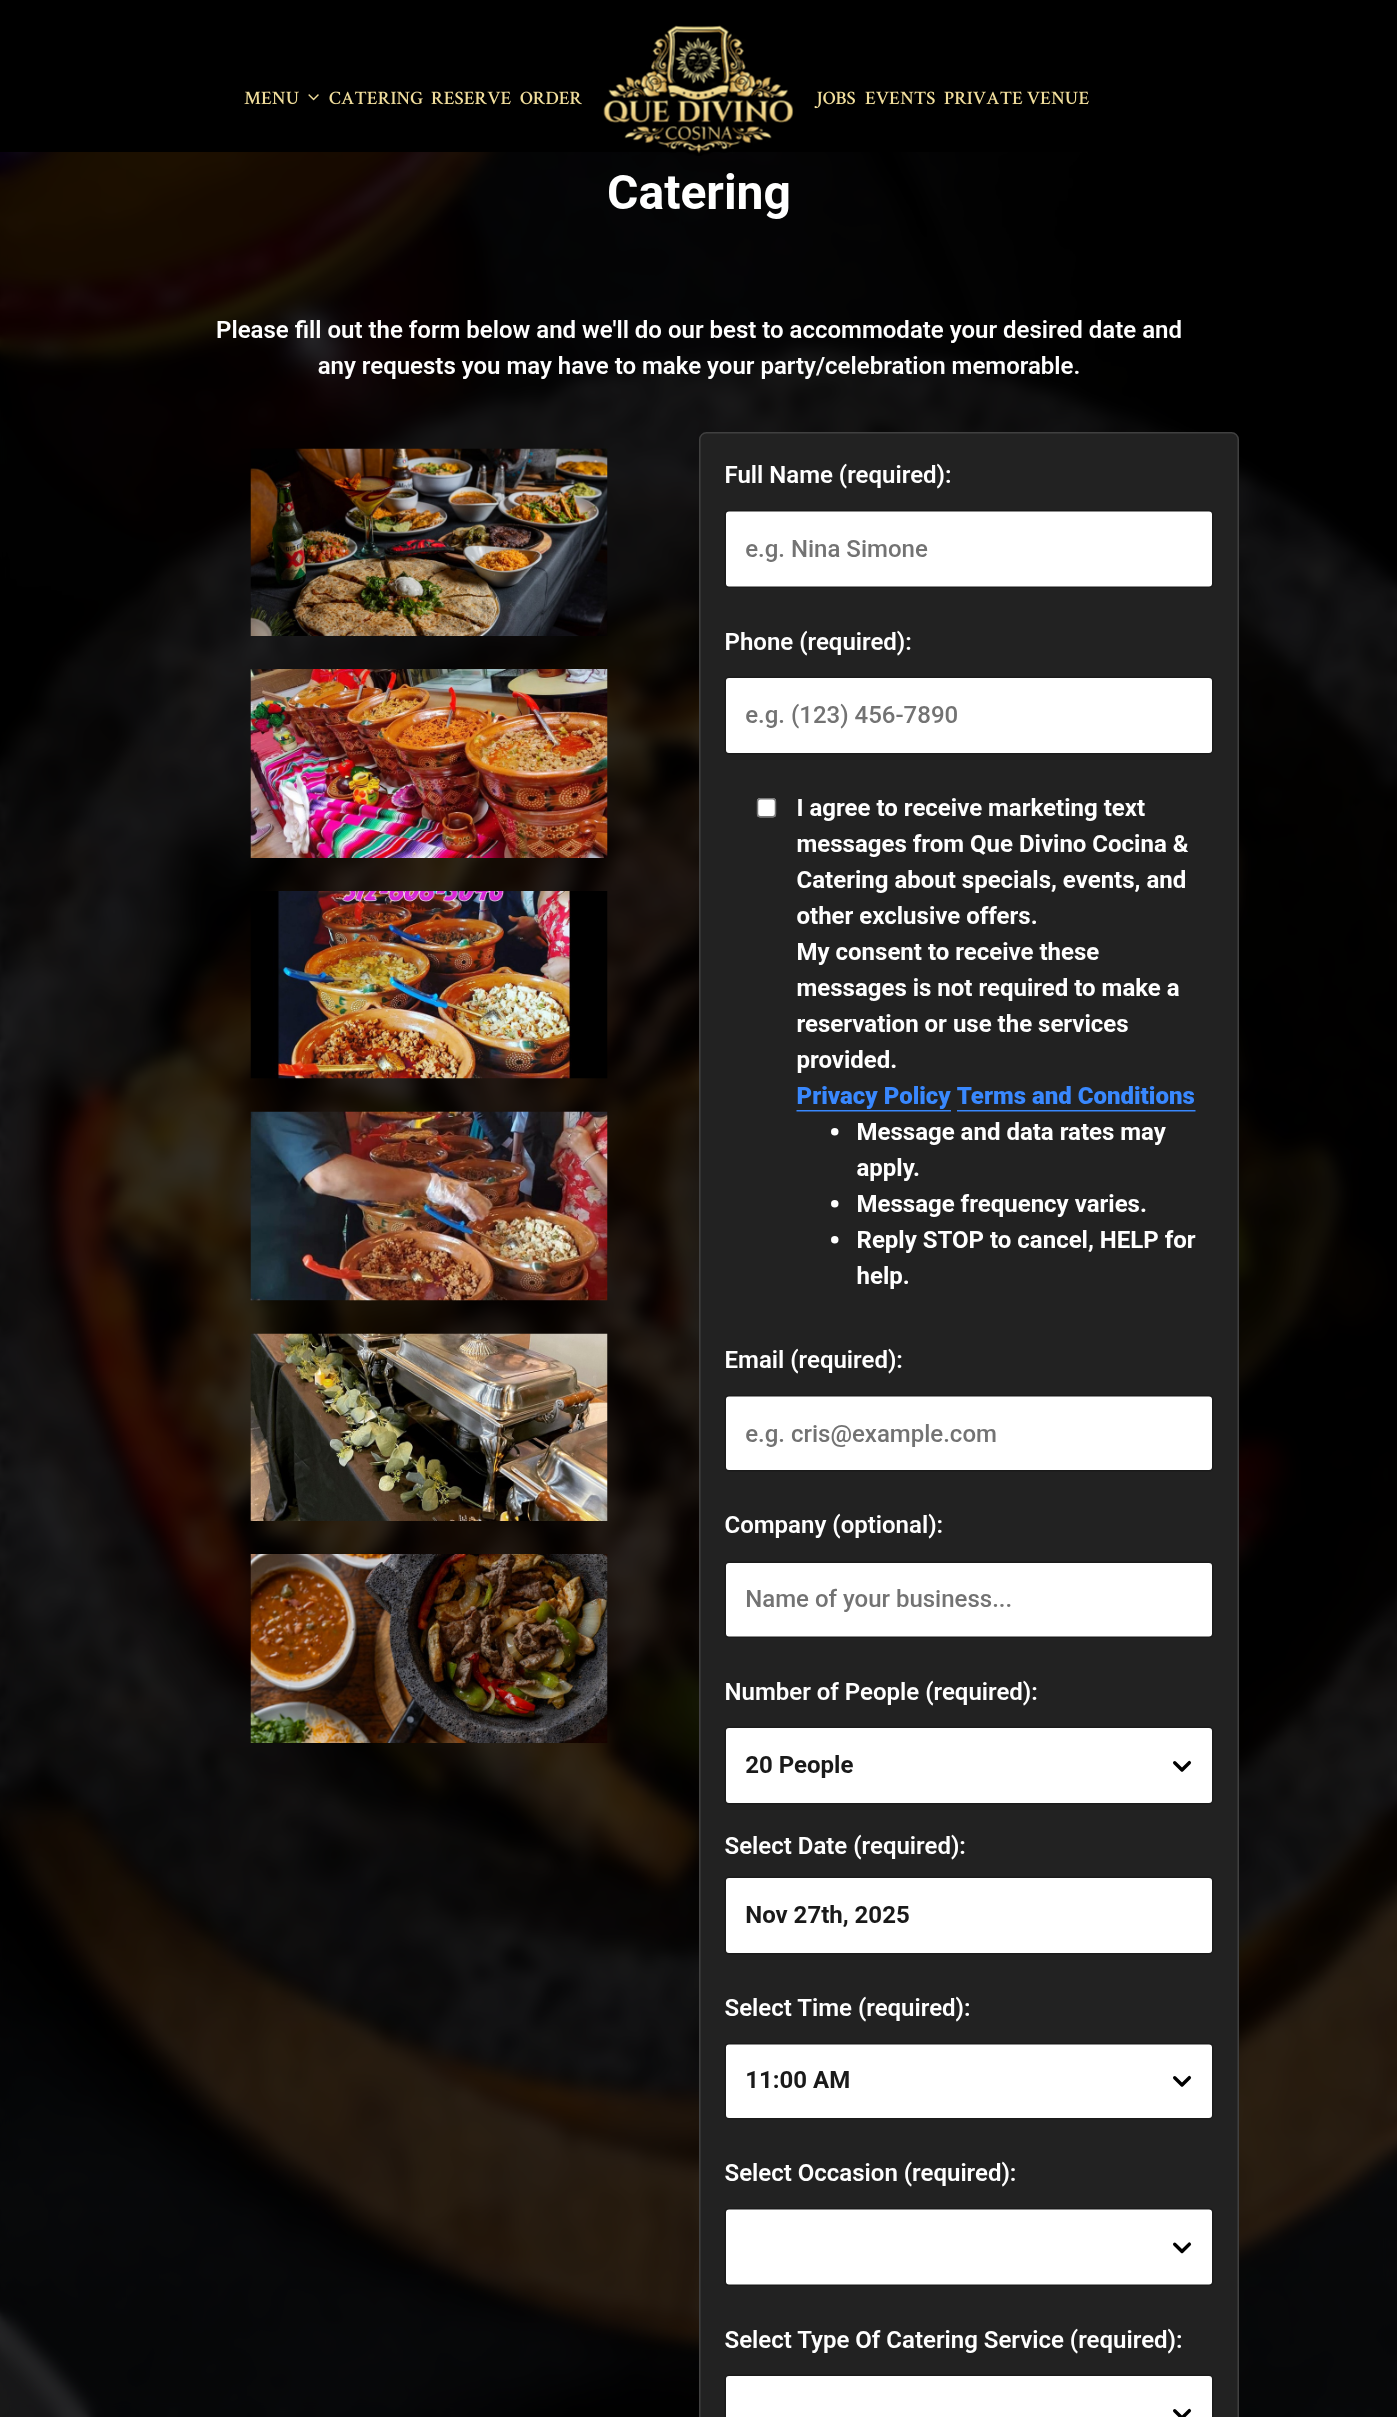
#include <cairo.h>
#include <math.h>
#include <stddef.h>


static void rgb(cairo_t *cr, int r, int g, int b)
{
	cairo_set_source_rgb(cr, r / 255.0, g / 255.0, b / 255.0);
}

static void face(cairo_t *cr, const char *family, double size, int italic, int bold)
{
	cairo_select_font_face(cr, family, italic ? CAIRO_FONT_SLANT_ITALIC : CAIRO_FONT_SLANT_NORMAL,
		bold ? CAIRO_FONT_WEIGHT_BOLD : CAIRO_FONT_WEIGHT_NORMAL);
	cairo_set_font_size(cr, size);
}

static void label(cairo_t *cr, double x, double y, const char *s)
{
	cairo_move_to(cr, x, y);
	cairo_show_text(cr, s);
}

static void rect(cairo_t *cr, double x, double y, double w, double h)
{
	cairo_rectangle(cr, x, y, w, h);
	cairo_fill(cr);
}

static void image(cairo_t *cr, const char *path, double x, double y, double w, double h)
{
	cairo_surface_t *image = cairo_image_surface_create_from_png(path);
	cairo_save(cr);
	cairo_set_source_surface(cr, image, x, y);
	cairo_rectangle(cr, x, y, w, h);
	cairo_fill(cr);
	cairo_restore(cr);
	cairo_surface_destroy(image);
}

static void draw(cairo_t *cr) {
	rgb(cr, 255, 255, 255);
	cairo_paint(cr);
	rgb(cr, 0, 0, 0);
	rect(cr, 0, 0, 1397, 152);
	face(cr, "Crimson Text SemiBold", 19, 0, 0);
	rgb(cr, 240, 221, 155);
	label(cr, 244, 104, "MENU");
	image(cr, "image0.png", 308, 94, 11, 7);
	label(cr, 329, 104, "CATERING");
	label(cr, 431, 104, "RESERVE");
	label(cr, 520, 104, "ORDER");
	image(cr, "image2.png", 0, 152, 1397, 2265);
	image(cr, "image1.png", 603, 25, 191, 131);
	label(cr, 816, 104, "JOBS");
	label(cr, 865, 104, "EVENTS");
	label(cr, 944, 104, "PRIVATE VENUE");
}

int main(void) {
	cairo_surface_t *surface = cairo_image_surface_create(CAIRO_FORMAT_RGB24, 1397, 2417);
	cairo_t *cr = cairo_create(surface);
	cairo_font_options_t *options = cairo_font_options_create();
	cairo_font_options_set_hint_metrics(options, CAIRO_HINT_METRICS_OFF);
	cairo_font_options_set_hint_style(options, CAIRO_HINT_STYLE_NONE);
	cairo_set_font_options(cr, options);
	cairo_set_miter_limit(cr, 4);
	draw(cr);
	cairo_surface_write_to_png(surface, "render.png");
	cairo_font_options_destroy(options);
	cairo_destroy(cr);
	cairo_surface_destroy(surface);
	return 0;
}
